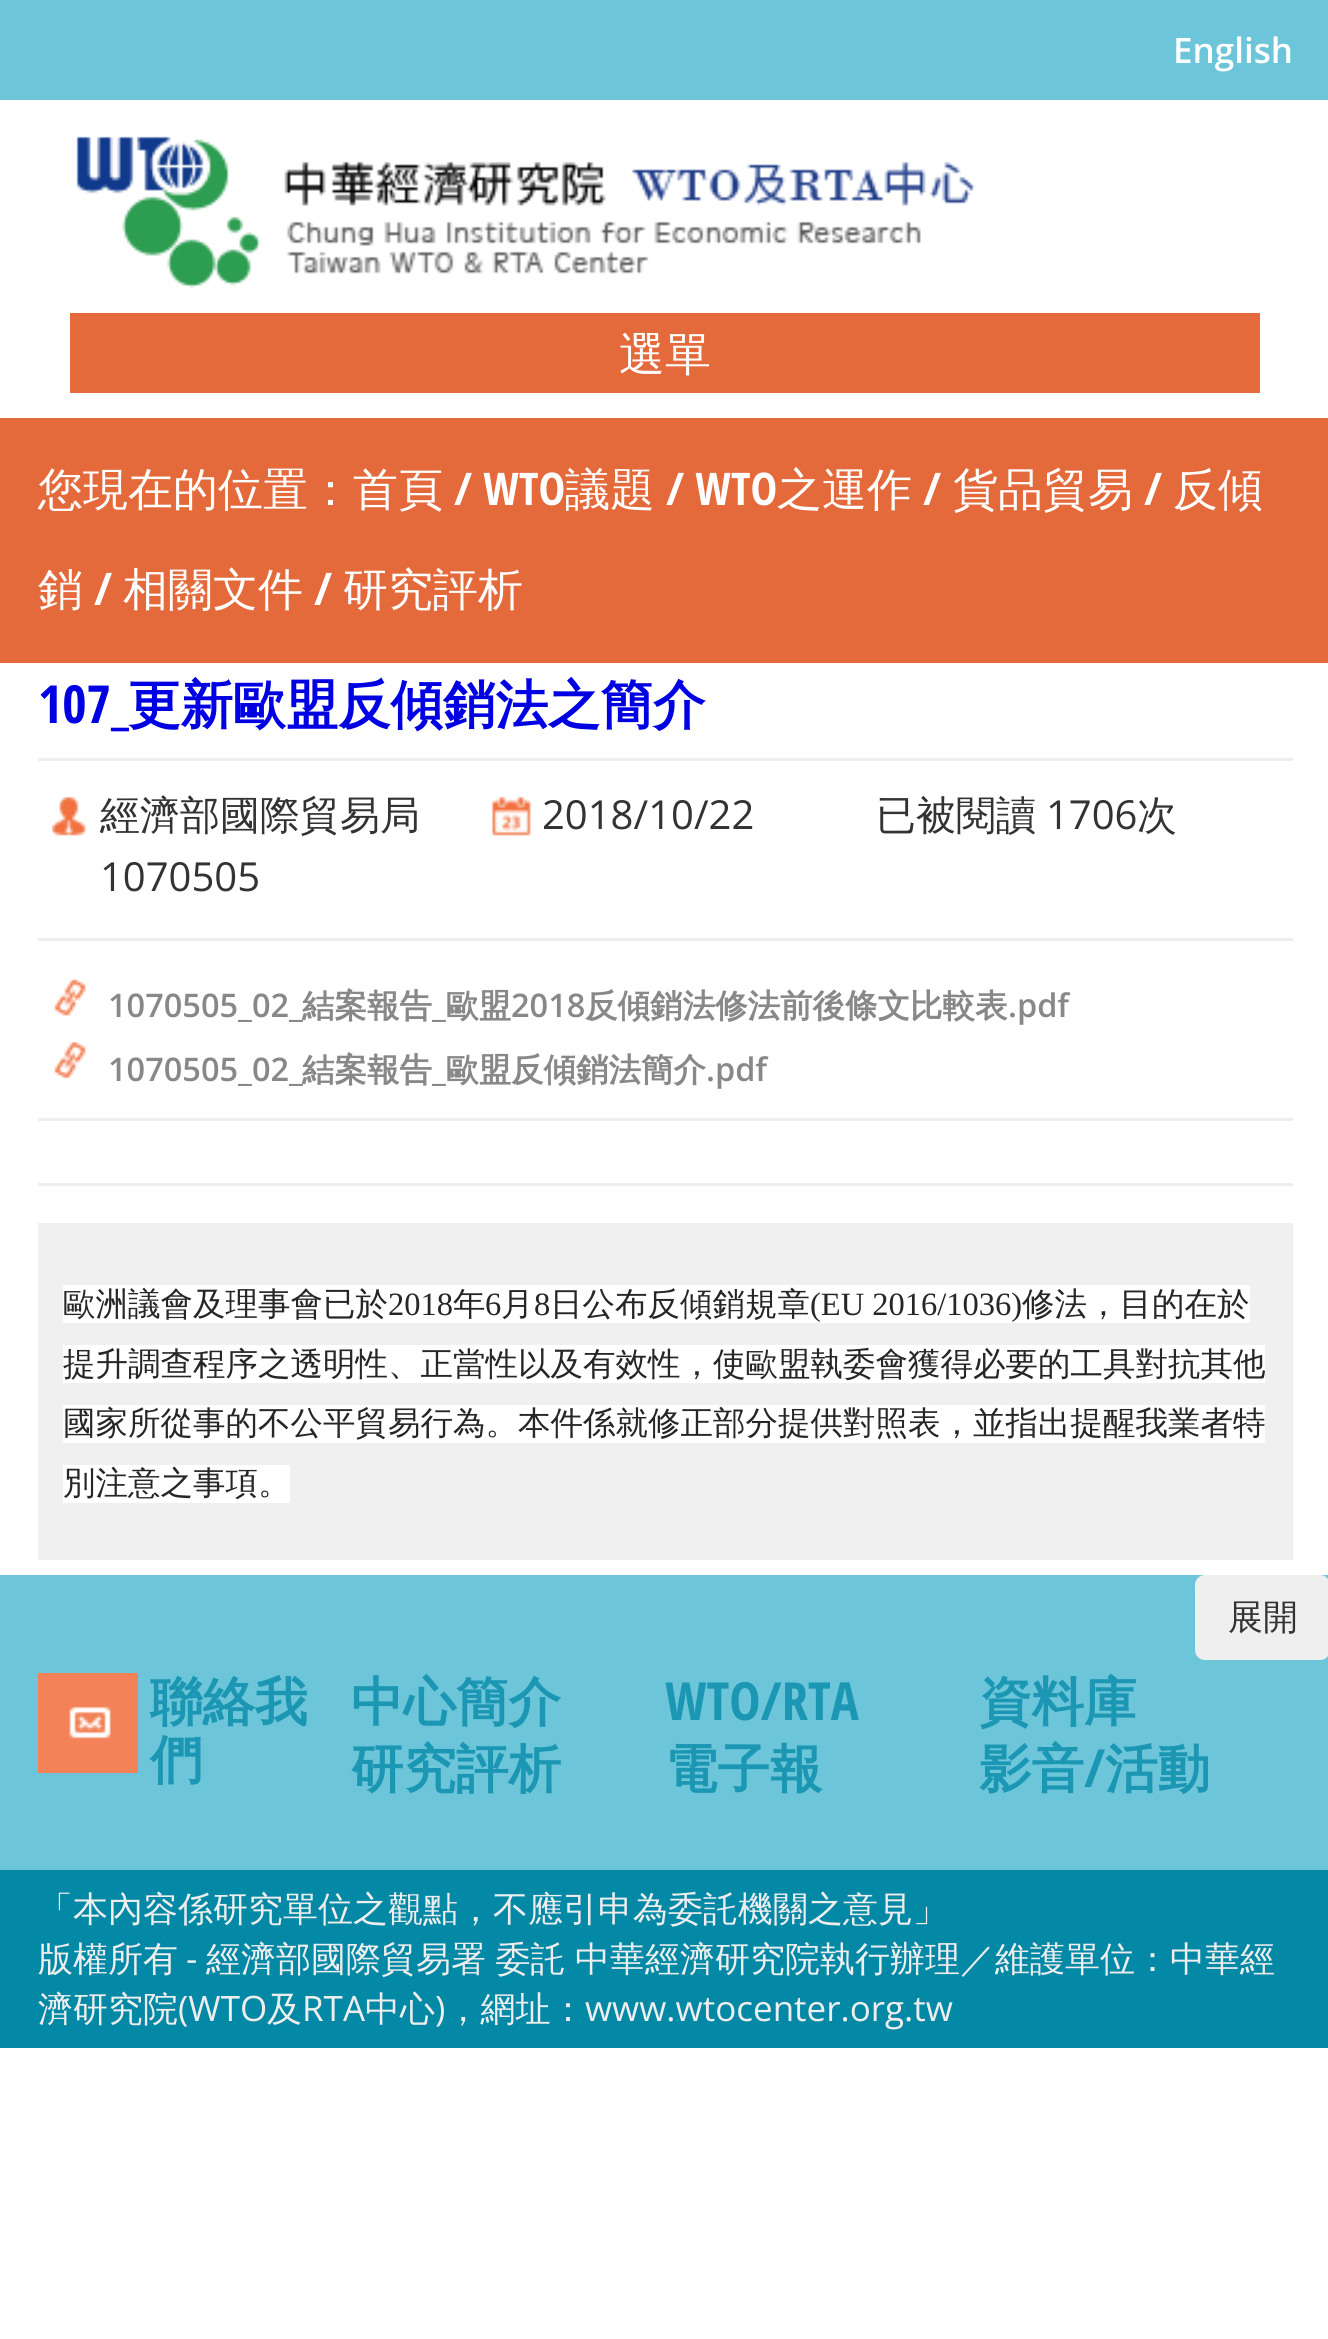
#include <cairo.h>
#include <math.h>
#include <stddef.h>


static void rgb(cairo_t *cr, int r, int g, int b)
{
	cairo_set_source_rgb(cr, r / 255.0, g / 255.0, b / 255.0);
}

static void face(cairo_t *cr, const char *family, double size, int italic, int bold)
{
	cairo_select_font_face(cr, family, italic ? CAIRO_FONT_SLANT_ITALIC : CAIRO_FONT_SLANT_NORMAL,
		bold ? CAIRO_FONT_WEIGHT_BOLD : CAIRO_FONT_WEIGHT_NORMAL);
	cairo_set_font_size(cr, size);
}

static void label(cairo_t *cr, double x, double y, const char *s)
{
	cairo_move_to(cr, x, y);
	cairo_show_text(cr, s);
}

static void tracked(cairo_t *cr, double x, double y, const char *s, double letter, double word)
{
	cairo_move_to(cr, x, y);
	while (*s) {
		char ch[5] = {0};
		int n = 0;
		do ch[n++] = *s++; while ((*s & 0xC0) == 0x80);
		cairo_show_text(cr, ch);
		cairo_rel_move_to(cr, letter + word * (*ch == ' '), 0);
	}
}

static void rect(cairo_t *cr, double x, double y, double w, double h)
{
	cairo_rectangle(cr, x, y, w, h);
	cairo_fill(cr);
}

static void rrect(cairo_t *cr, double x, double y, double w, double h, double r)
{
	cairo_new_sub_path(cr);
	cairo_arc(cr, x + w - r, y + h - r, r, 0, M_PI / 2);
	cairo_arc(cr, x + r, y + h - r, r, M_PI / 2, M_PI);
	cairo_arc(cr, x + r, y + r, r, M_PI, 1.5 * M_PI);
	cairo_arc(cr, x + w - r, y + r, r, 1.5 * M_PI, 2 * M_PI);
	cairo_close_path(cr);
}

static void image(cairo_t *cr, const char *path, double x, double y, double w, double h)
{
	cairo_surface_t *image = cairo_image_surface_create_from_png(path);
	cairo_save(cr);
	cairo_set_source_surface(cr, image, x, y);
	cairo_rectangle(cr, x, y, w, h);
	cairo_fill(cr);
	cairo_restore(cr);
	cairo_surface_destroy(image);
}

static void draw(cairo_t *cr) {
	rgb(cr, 255, 255, 255);
	cairo_paint(cr);
	rgb(cr, 108, 197, 217);
	rect(cr, 0, 0, 1328, 100);
	face(cr, "Open Sans SemiBold", 35, 0, 0);
	rgb(cr, 255, 255, 255);
	label(cr, 1173, 63, "English");
	image(cr, "image0.png", 76, 136, 900, 153);
	rgb(cr, 228, 106, 59);
	rect(cr, 70, 313, 1190, 80);
	face(cr, "WenQuanYi Zen Hei Medium", 46, 0, 0);
	rgb(cr, 255, 255, 255);
	label(cr, 619, 370, "選單");
	rgb(cr, 228, 106, 59);
	rect(cr, 0, 418, 1328, 245);
	face(cr, "WenQuanYi Zen Hei Medium", 45, 0, 0);
	rgb(cr, 255, 255, 255);
	label(cr, 38, 505, "您現在的位置：首頁");
	face(cr, "Open Sans Condensed", 45, 0, 1);
	label(cr, 454, 505, "/ WTO");
	face(cr, "WenQuanYi Zen Hei Medium", 45, 0, 0);
	label(cr, 565, 505, "議題");
	face(cr, "Open Sans Condensed", 45, 0, 1);
	label(cr, 666, 505, "/ WTO");
	face(cr, "WenQuanYi Zen Hei Medium", 45, 0, 0);
	label(cr, 777, 505, "之運作");
	face(cr, "Open Sans Condensed", 45, 0, 1);
	label(cr, 923, 505, "/");
	face(cr, "WenQuanYi Zen Hei Medium", 45, 0, 0);
	label(cr, 953, 505, "貨品貿易");
	face(cr, "Open Sans Condensed", 45, 0, 1);
	label(cr, 1144, 505, "/");
	face(cr, "WenQuanYi Zen Hei Medium", 45, 0, 0);
	label(cr, 1173, 505, "反傾");
	label(cr, 38, 605, "銷");
	face(cr, "Open Sans Condensed", 45, 0, 1);
	label(cr, 94, 605, "/");
	face(cr, "WenQuanYi Zen Hei Medium", 45, 0, 0);
	label(cr, 123, 605, "相關文件");
	face(cr, "Open Sans Condensed", 45, 0, 1);
	label(cr, 314, 605, "/");
	face(cr, "WenQuanYi Zen Hei Medium", 45, 0, 0);
	label(cr, 343, 605, "研究評析");
	face(cr, "Open Sans Condensed", 52.5, 0, 1);
	rgb(cr, 0, 0, 227);
	label(cr, 38, 723, "107_");
	face(cr, "WenQuanYi Zen Hei", 52.5, 0, 1);
	label(cr, 128, 723, "更新歐盟反傾銷法之簡介");
	rgb(cr, 238, 238, 238);
	rect(cr, 38, 758, 1255, 3);
	rect(cr, 38, 1183, 1255, 3);
	image(cr, "image1.png", 51, 796, 35, 40);
	face(cr, "WenQuanYi Zen Hei Medium", 40, 0, 0);
	rgb(cr, 51, 51, 51);
	label(cr, 100, 829, "經濟部國際貿易局");
	image(cr, "image2.png", 491, 796, 40, 40);
	face(cr, "Open Sans", 40, 0, 0);
	label(cr, 542, 829, "2018/10/22");
	face(cr, "WenQuanYi Zen Hei Medium", 40, 0, 0);
	label(cr, 876, 829, "已被閱讀");
	face(cr, "Open Sans", 40, 0, 0);
	label(cr, 1046, 829, "1706");
	face(cr, "WenQuanYi Zen Hei Medium", 40, 0, 0);
	label(cr, 1137, 829, "次");
	face(cr, "Open Sans", 40, 0, 0);
	label(cr, 100, 891, "1070505");
	rgb(cr, 238, 238, 238);
	rect(cr, 38, 938, 1255, 3);
	rect(cr, 38, 1118, 1255, 3);
	image(cr, "image3.png", 54, 979, 32, 37);
	face(cr, "Open Sans SemiBold", 32.5, 0, 0);
	rgb(cr, 136, 136, 136);
	label(cr, 108, 1017, "1070505_02_");
	face(cr, "WenQuanYi Zen Hei", 32.5, 0, 1);
	label(cr, 302, 1017, "結案報告");
	label(cr, 446, 1017, "歐盟");
	face(cr, "Open Sans SemiBold", 32.5, 0, 0);
	label(cr, 511, 1017, "2018");
	face(cr, "WenQuanYi Zen Hei", 32.5, 0, 1);
	label(cr, 585, 1017, "反傾銷法修法前後條文比較表");
	face(cr, "Open Sans SemiBold", 32.5, 0, 0);
	label(cr, 1008, 1017, ".pdf");
	label(cr, 432, 1017, "_");
	image(cr, "image4.png", 54, 1041, 32, 38);
	label(cr, 108, 1081, "1070505_02_");
	face(cr, "WenQuanYi Zen Hei", 32.5, 0, 1);
	label(cr, 302, 1081, "結案報告");
	face(cr, "Open Sans SemiBold", 32.5, 0, 0);
	label(cr, 432, 1081, "_");
	face(cr, "WenQuanYi Zen Hei", 32.5, 0, 1);
	label(cr, 446, 1081, "歐盟反傾銷法簡介");
	face(cr, "Open Sans SemiBold", 32.5, 0, 0);
	label(cr, 706, 1081, ".pdf");
	rgb(cr, 240, 240, 240);
	rect(cr, 38, 1223, 1255, 337);
	rgb(cr, 255, 255, 255);
	rect(cr, 63, 1285, 1187, 38);
	face(cr, "WenQuanYi Zen Hei Medium", 32.5, 0, 0);
	rgb(cr, 38, 38, 38);
	label(cr, 63, 1315, "歐洲議會及理事會已於");
	face(cr, "Liberation Serif", 32.5, 0, 0);
	label(cr, 388, 1315, "2018");
	face(cr, "WenQuanYi Zen Hei Medium", 32.5, 0, 0);
	label(cr, 453, 1315, "年");
	face(cr, "Liberation Serif", 32.5, 0, 0);
	label(cr, 485, 1315, "6");
	face(cr, "WenQuanYi Zen Hei Medium", 32.5, 0, 0);
	label(cr, 501, 1315, "月");
	face(cr, "Liberation Serif", 32.5, 0, 0);
	label(cr, 534, 1315, "8");
	face(cr, "WenQuanYi Zen Hei Medium", 32.5, 0, 0);
	label(cr, 550, 1315, "日公布反傾銷規章");
	face(cr, "Liberation Serif", 32.5, 0, 0);
	label(cr, 810, 1315, "(EU 2016/1036)");
	face(cr, "WenQuanYi Zen Hei Medium", 32.5, 0, 0);
	label(cr, 1022, 1315, "修法，目的在於");
	rgb(cr, 255, 255, 255);
	rect(cr, 63, 1345, 1202, 38);
	rgb(cr, 38, 38, 38);
	label(cr, 63, 1375, "提升調查程序之透明性、正當性以及有效性，使歐盟執委會獲得必要的工具對抗其他");
	rgb(cr, 255, 255, 255);
	rect(cr, 63, 1405, 1202, 38);
	rgb(cr, 38, 38, 38);
	label(cr, 63, 1434, "國家所從事的不公平貿易行為。本件係就修正部分提供對照表，並指出提醒我業者特");
	rgb(cr, 255, 255, 255);
	rect(cr, 63, 1465, 227, 38);
	rgb(cr, 38, 38, 38);
	label(cr, 63, 1494, "別注意之事項。");
	rgb(cr, 108, 197, 217);
	rect(cr, 0, 1575, 1328, 295);
	rgb(cr, 239, 239, 239);
	rrect(cr, 1195, 1575, 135, 85, 10);
	cairo_fill(cr);
	face(cr, "WenQuanYi Zen Hei Medium", 35, 0, 0);
	rgb(cr, 51, 51, 51);
	label(cr, 1228, 1629, "展開");
	rgb(cr, 244, 130, 88);
	rect(cr, 38, 1673, 100, 100);
	image(cr, "image5.png", 69, 1706, 42, 33);
	face(cr, "WenQuanYi Zen Hei", 52.5, 0, 1);
	rgb(cr, 27, 150, 179);
	label(cr, 150, 1720, "聯絡我");
	label(cr, 150, 1778, "們");
	label(cr, 351, 1720, "中心簡介");
	face(cr, "Open Sans Condensed", 52.5, 0, 1);
	label(cr, 665, 1720, "WTO/RTA");
	face(cr, "WenQuanYi Zen Hei", 52.5, 0, 1);
	label(cr, 979, 1720, "資料庫");
	label(cr, 351, 1787, "研究評析");
	label(cr, 665, 1787, "電子報");
	label(cr, 979, 1787, "影音");
	face(cr, "Open Sans Condensed", 52.5, 0, 1);
	label(cr, 1084, 1787, "/");
	face(cr, "WenQuanYi Zen Hei", 52.5, 0, 1);
	label(cr, 1105, 1787, "活動");
	rgb(cr, 3, 136, 166);
	rect(cr, 0, 1870, 1328, 178);
	face(cr, "WenQuanYi Zen Hei Medium", 35, 0, 0);
	rgb(cr, 238, 238, 238);
	label(cr, 38, 1921, "「本內容係研究單位之觀點，不應引申為委託機關之意見」");
	label(cr, 38, 1971, "版權所有");
	face(cr, "Open Sans", 35, 0, 0);
	label(cr, 186, 1971, "-");
	face(cr, "WenQuanYi Zen Hei Medium", 35, 0, 0);
	tracked(cr, 206, 1971, "經濟部國際貿易署 委託 中華經濟研究院執行辦理／維護單位：中華經", 0, -1);
	label(cr, 38, 2021, "濟研究院");
	face(cr, "Open Sans", 35, 0, 0);
	label(cr, 178, 2021, "(WTO");
	face(cr, "WenQuanYi Zen Hei Medium", 35, 0, 0);
	label(cr, 267, 2021, "及");
	face(cr, "Open Sans", 35, 0, 0);
	label(cr, 302, 2021, "RTA");
	face(cr, "WenQuanYi Zen Hei Medium", 35, 0, 0);
	label(cr, 365, 2021, "中心 ，網址：");
	face(cr, "Open Sans", 35, 0, 0);
	label(cr, 435, 2021, ")");
	label(cr, 585, 2021, "www.wtocenter.org.tw");
}

int main(void) {
	cairo_surface_t *surface = cairo_image_surface_create(CAIRO_FORMAT_RGB24, 1328, 2339);
	cairo_t *cr = cairo_create(surface);
	cairo_font_options_t *options = cairo_font_options_create();
	cairo_font_options_set_hint_metrics(options, CAIRO_HINT_METRICS_OFF);
	cairo_font_options_set_hint_style(options, CAIRO_HINT_STYLE_NONE);
	cairo_set_font_options(cr, options);
	cairo_set_miter_limit(cr, 4);
	draw(cr);
	cairo_surface_write_to_png(surface, "render.png");
	cairo_font_options_destroy(options);
	cairo_destroy(cr);
	cairo_surface_destroy(surface);
	return 0;
}
